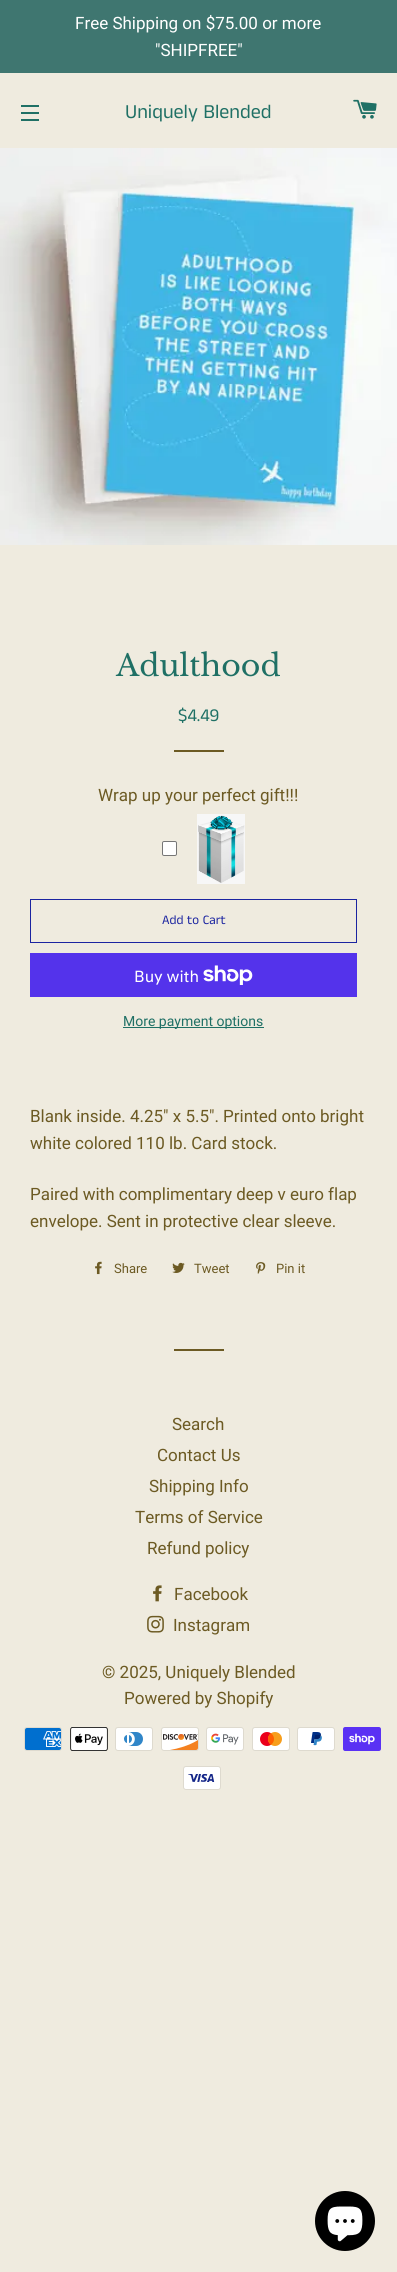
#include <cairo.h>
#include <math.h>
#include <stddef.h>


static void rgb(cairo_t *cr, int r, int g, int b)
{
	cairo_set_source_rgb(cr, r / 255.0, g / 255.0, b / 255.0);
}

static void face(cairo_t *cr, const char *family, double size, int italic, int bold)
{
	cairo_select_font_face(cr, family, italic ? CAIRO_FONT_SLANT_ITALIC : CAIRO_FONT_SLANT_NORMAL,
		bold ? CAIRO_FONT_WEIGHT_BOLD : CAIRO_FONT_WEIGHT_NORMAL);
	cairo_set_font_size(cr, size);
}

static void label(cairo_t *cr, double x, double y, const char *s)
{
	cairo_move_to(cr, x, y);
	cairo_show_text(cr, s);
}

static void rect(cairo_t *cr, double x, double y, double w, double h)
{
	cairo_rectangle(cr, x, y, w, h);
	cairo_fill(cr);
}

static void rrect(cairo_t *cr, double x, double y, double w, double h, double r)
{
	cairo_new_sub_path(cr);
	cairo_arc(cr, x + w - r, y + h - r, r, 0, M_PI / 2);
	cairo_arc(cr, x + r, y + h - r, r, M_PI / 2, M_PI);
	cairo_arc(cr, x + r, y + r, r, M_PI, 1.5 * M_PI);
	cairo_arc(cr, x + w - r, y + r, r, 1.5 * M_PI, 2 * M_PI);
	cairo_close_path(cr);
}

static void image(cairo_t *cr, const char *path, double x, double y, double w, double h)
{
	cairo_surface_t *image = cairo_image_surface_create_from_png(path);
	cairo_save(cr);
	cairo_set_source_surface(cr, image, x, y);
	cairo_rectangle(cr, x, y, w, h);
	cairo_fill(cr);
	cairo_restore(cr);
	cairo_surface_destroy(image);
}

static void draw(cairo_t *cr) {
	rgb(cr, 239, 235, 223);
	cairo_paint(cr);
	rgb(cr, 63, 118, 112);
	rect(cr, 0, 0, 397, 73);
	face(cr, "Roboto", 17, 0, 0);
	rgb(cr, 255, 255, 255);
	label(cr, 75, 29, "Free Shipping on $75.00 or more");
	label(cr, 155, 56, "\"SHIPFREE\"");
	rgb(cr, 31, 112, 101);
	rect(cr, 21, 105, 18, 2);
	rect(cr, 21, 112, 18, 2);
	rect(cr, 21, 119, 18, 2);
	face(cr, "Anek Tamil", 20, 0, 0);
	label(cr, 125, 118, "Uniquely Blended");
	image(cr, "image0.png", 353, 99, 24, 20);
	image(cr, "image1.png", 0, 148, 397, 397);
	face(cr, "Libre Baskerville", 30, 0, 0);
	label(cr, 116, 676, "Adulthood");
	face(cr, "Anek Tamil", 18, 0, 0);
	label(cr, 178, 721, "$4.49");
	rgb(cr, 108, 90, 35);
	rect(cr, 174, 750, 50, 2);
	face(cr, "Roboto", 17, 0, 0);
	label(cr, 98, 801, "Wrap up your perfect gift!!!");
	rgb(cr, 255, 255, 255);
	rrect(cr, 162.5, 841.5, 14, 14, 1.5);
	cairo_fill_preserve(cr);
	rgb(cr, 118, 118, 118);
	cairo_set_line_width(cr, 1);
	cairo_stroke(cr);
	image(cr, "image2.png", 197, 814, 48, 70);
	cairo_rectangle(cr, 30.5, 899.5, 326, 43);
	rgb(cr, 27, 36, 160);
	cairo_stroke(cr);
	face(cr, "Anek Tamil", 13, 0, 0);
	label(cr, 162, 924, "Add to Cart");
	rgb(cr, 84, 51, 235);
	rect(cr, 30, 953, 327, 44);
	face(cr, "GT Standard", 16, 0, 0);
	rgb(cr, 255, 255, 255);
	label(cr, 134, 982, "Buy with");
	image(cr, "image3.png", 203, 965, 50, 20);
	rgb(cr, 31, 112, 101);
	rect(cr, 123, 1027, 141, 1);
	face(cr, "Roboto", 14, 0, 0);
	label(cr, 123, 1026, "More payment options");
	face(cr, "Roboto", 17, 0, 0);
	rgb(cr, 108, 90, 35);
	label(cr, 30, 1122, "Blank inside. 4.25\" x 5.5\". Printed onto bright");
	label(cr, 30, 1149, "white colored 110 lb. Card stock.");
	label(cr, 30, 1200, "Paired with complimentary deep v euro flap");
	label(cr, 30, 1227, "envelope. Sent in protective clear sleeve.");
	image(cr, "image4.png", 95, 1261, 7, 14);
	face(cr, "Roboto", 13, 0, 0);
	label(cr, 114, 1273, "Share");
	image(cr, "image5.png", 172, 1262, 13, 11);
	label(cr, 194, 1273, "Tweet");
	image(cr, "image6.png", 256, 1262, 10, 12);
	label(cr, 276, 1273, "Pin it");
	rect(cr, 174, 1349, 50, 2);
	face(cr, "Roboto", 17, 0, 0);
	label(cr, 172, 1430, "Search");
	label(cr, 157, 1461, "Contact Us");
	label(cr, 149, 1492, "Shipping Info");
	label(cr, 135, 1523, "Terms of Service");
	label(cr, 147, 1554, "Refund policy");
	image(cr, "image7.png", 153, 1585, 9, 17);
	label(cr, 174, 1600, "Facebook");
	image(cr, "image8.png", 147, 1615, 17, 18);
	label(cr, 173, 1631, "Instagram");
	label(cr, 102, 1678, "© 2025, Uniquely Blended");
	label(cr, 124, 1704, "Powered by Shopify");
	image(cr, "image9.png", 24, 1727, 38, 24);
	image(cr, "image10.png", 70, 1727, 38, 24);
	image(cr, "image11.png", 115, 1727, 38, 24);
	image(cr, "image12.png", 161, 1727, 38, 24);
	image(cr, "image13.png", 206, 1727, 38, 24);
	image(cr, "image14.png", 252, 1727, 38, 24);
	image(cr, "image15.png", 297, 1727, 38, 24);
	image(cr, "image16.png", 343, 1727, 38, 24);
	image(cr, "image17.png", 183, 1766, 38, 24);
	rgb(cr, 0, 0, 0);
	cairo_arc(cr, 345, 2221, 30, 0, 2 * M_PI);
	cairo_fill(cr);
	image(cr, "image18.png", 327, 2206, 36, 36);
}

int main(void) {
	cairo_surface_t *surface = cairo_image_surface_create(CAIRO_FORMAT_RGB24, 397, 2272);
	cairo_t *cr = cairo_create(surface);
	cairo_font_options_t *options = cairo_font_options_create();
	cairo_font_options_set_hint_metrics(options, CAIRO_HINT_METRICS_OFF);
	cairo_font_options_set_hint_style(options, CAIRO_HINT_STYLE_NONE);
	cairo_set_font_options(cr, options);
	cairo_set_miter_limit(cr, 4);
	draw(cr);
	cairo_surface_write_to_png(surface, "render.png");
	cairo_font_options_destroy(options);
	cairo_destroy(cr);
	cairo_surface_destroy(surface);
	return 0;
}
